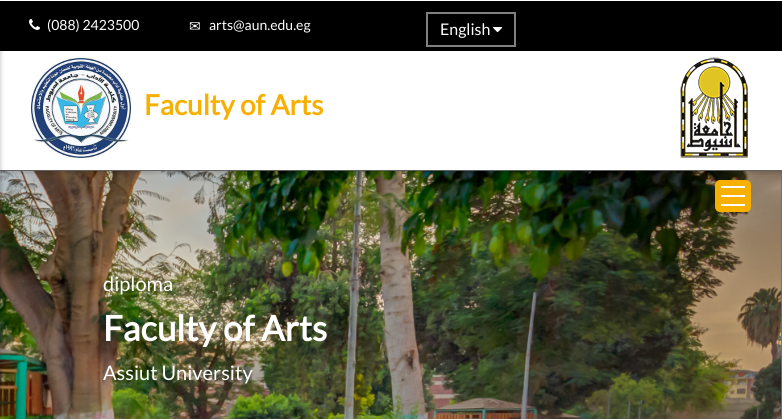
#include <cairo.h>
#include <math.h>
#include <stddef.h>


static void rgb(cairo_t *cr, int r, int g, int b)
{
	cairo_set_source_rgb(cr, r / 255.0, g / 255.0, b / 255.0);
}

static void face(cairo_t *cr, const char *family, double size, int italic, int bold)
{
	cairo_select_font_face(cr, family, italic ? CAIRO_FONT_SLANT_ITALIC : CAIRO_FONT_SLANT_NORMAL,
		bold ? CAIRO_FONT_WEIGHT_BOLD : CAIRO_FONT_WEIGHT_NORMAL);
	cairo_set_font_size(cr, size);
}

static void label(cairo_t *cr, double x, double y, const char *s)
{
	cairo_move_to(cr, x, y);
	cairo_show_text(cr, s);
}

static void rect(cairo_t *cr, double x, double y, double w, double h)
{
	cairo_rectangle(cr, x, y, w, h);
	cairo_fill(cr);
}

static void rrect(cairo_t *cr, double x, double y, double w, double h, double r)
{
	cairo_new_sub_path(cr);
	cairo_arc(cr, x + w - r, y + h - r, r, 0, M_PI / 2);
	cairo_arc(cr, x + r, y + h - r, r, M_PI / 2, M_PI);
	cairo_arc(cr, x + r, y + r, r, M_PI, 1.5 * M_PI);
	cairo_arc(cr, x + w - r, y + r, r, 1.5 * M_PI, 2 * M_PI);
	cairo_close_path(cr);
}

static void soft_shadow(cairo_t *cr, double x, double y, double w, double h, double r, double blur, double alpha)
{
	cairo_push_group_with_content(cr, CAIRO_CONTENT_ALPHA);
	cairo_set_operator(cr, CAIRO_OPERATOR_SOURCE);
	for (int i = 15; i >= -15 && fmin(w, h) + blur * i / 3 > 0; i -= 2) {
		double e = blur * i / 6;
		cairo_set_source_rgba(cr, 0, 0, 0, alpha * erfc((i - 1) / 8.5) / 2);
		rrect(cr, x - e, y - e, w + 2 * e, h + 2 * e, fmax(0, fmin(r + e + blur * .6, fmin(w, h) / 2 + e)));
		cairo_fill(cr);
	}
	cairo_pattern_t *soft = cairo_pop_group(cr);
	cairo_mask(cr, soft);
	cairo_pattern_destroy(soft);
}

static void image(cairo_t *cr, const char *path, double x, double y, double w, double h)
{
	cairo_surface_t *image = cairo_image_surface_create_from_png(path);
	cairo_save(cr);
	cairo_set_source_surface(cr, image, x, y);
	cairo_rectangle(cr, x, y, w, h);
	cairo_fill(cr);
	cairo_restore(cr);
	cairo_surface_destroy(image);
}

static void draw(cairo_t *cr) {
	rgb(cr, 255, 255, 255);
	cairo_paint(cr);
	image(cr, "image4.png", 0, 170, 782, 249);
	cairo_save(cr);
	cairo_rectangle(cr, 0, 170, 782, 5);
	cairo_clip(cr);
	rgb(cr, 0, 0, 0);
	soft_shadow(cr, 0, 4, 782, 169, 0, 2, 0.14);
	cairo_restore(cr);
	rgb(cr, 0, 0, 0);
	rect(cr, 0, 1, 782, 50);
	rgb(cr, 0, 0, 0);
	soft_shadow(cr, -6, 3, 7, 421, 0, 2, 0.2);
	rgb(cr, 247, 176, 0);
	rrect(cr, 715, 180, 36, 32, 5);
	cairo_fill(cr);
	rgb(cr, 255, 255, 255);
	rect(cr, 721, 186, 24, 2);
	rect(cr, 721, 195, 24, 2);
	rect(cr, 721, 204, 24, 2);
	image(cr, "image0.png", 29, 19, 11, 11);
	face(cr, "Lato", 14, 0, 0);
	label(cr, 47, 30, "(088) 2423500");
	face(cr, "DejaVu Sans", 14, 0, 0);
	label(cr, 189, 31, "✉");
	face(cr, "Lato", 14, 0, 0);
	label(cr, 209, 30, "arts@aun.edu.eg");
	cairo_rectangle(cr, 427, 13, 88, 33);
	rgb(cr, 128, 128, 128);
	cairo_stroke(cr);
	face(cr, "Lato", 16, 0, 0);
	rgb(cr, 255, 255, 255);
	label(cr, 440, 35, "English");
	image(cr, "image1.png", 493, 27, 10, 6);
	image(cr, "image2.png", 31, 58, 100, 100);
	face(cr, "Lato", 28, 0, 1);
	rgb(cr, 247, 176, 0);
	label(cr, 144, 115, "Faculty of Arts");
	image(cr, "image3.png", 680, 57, 68, 101);
	face(cr, "Lato", 20, 0, 0);
	rgb(cr, 255, 255, 255);
	label(cr, 103, 291, "diploma");
	face(cr, "Lato", 35, 0, 1);
	label(cr, 103, 341, "Faculty of Arts");
	face(cr, "Lato", 20, 0, 0);
	label(cr, 103, 380, "Assiut University");
}

int main(void) {
	cairo_surface_t *surface = cairo_image_surface_create(CAIRO_FORMAT_RGB24, 782, 419);
	cairo_t *cr = cairo_create(surface);
	cairo_font_options_t *options = cairo_font_options_create();
	cairo_font_options_set_hint_metrics(options, CAIRO_HINT_METRICS_OFF);
	cairo_font_options_set_hint_style(options, CAIRO_HINT_STYLE_NONE);
	cairo_set_font_options(cr, options);
	cairo_set_miter_limit(cr, 4);
	draw(cr);
	cairo_surface_write_to_png(surface, "render.png");
	cairo_font_options_destroy(options);
	cairo_destroy(cr);
	cairo_surface_destroy(surface);
	return 0;
}
